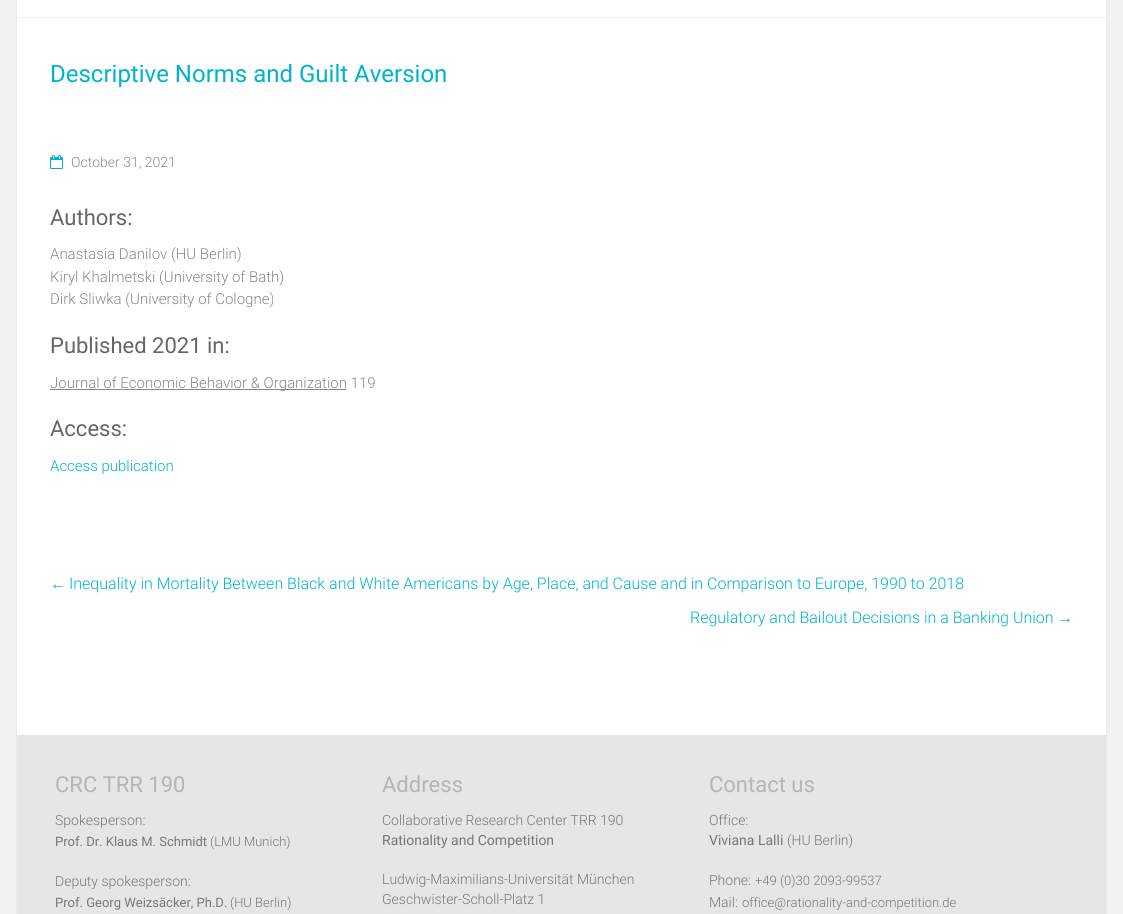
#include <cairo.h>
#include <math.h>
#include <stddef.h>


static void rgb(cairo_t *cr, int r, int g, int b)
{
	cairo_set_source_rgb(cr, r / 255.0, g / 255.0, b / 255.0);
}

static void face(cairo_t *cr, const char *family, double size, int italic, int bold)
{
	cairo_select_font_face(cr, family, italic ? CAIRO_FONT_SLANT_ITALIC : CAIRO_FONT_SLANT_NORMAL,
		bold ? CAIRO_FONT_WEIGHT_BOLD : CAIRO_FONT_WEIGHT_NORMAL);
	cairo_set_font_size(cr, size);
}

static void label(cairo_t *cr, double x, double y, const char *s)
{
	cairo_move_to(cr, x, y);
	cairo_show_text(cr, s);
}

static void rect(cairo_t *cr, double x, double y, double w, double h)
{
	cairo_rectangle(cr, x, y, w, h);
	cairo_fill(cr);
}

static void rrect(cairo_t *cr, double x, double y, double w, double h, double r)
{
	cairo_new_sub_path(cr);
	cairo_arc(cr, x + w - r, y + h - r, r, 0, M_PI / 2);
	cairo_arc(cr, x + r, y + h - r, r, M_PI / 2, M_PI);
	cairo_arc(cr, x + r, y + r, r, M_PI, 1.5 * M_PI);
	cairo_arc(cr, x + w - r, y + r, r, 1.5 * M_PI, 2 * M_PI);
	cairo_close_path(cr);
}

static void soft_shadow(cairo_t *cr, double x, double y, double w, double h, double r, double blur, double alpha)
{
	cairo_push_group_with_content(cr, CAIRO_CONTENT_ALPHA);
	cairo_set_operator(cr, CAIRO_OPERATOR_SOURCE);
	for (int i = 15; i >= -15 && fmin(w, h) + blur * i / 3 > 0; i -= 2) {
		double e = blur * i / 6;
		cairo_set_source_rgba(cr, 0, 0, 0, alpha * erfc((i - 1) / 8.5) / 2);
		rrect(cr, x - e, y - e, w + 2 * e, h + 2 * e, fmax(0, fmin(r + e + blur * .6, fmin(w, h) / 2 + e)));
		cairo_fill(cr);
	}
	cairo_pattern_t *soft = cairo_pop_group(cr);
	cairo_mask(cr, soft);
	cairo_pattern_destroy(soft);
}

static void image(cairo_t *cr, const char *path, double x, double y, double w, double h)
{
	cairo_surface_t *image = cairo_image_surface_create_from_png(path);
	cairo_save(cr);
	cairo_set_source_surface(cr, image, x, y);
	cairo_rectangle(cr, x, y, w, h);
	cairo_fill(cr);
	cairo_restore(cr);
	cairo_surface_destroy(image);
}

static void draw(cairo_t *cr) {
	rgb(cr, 242, 242, 242);
	cairo_paint(cr);
	rgb(cr, 0, 0, 0);
	soft_shadow(cr, 17, -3, 1089, 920, 0, 1, 0.1);
	rgb(cr, 255, 255, 255);
	rect(cr, 17, 0, 1089, 735);
	rgb(cr, 242, 242, 242);
	rect(cr, 17, 17, 1089, 1);
	face(cr, "Roboto", 24, 0, 0);
	rgb(cr, 0, 179, 204);
	label(cr, 50, 82, "Descriptive Norms and Guilt Aversion");
	image(cr, "image0.png", 50, 155, 13, 14);
	face(cr, "Roboto Light", 14, 0, 0);
	rgb(cr, 136, 136, 136);
	label(cr, 71, 167, "October 31, 2021");
	face(cr, "Roboto", 22, 0, 0);
	rgb(cr, 102, 102, 102);
	label(cr, 50, 225, "Authors:");
	face(cr, "Roboto Light", 15, 0, 0);
	rgb(cr, 136, 136, 136);
	label(cr, 50, 259, "Anastasia Danilov (HU Berlin)");
	label(cr, 50, 282, "Kiryl Khalmetski (University of Bath)");
	label(cr, 50, 304, "Dirk Sliwka (University of Cologne)");
	face(cr, "Roboto", 22, 0, 0);
	rgb(cr, 102, 102, 102);
	label(cr, 50, 353, "Published 2021 in:");
	rgb(cr, 136, 136, 136);
	rect(cr, 50, 389, 296, 1);
	face(cr, "Roboto Light", 15, 0, 0);
	label(cr, 50, 388, "Journal of Economic Behavior & Organization 119");
	face(cr, "Roboto", 22, 0, 0);
	rgb(cr, 102, 102, 102);
	label(cr, 50, 436, "Access:");
	face(cr, "Roboto Light", 15, 0, 0);
	rgb(cr, 0, 179, 204);
	label(cr, 50, 471, "Access publication");
	face(cr, "Liberation Sans", 16, 0, 0);
	label(cr, 50, 589, "←");
	face(cr, "Roboto Light", 16, 0, 0);
	label(cr, 69, 589, "Inequality in Mortality Between Black and White Americans by Age, Place, and Cause and in Comparison to Europe, 1990 to 2018");
	label(cr, 690, 623, "Regulatory and Bailout Decisions in a Banking Union");
	face(cr, "Liberation Sans", 16, 0, 0);
	label(cr, 1057, 623, "→");
	rgb(cr, 229, 230, 230);
	rect(cr, 17, 735, 1089, 179);
	face(cr, "Roboto", 22, 0, 0);
	rgb(cr, 177, 182, 182);
	label(cr, 55, 792, "CRC TRR 190");
	face(cr, "Roboto Light", 14, 0, 0);
	rgb(cr, 119, 119, 119);
	label(cr, 55, 825, "Spokesperson:");
	face(cr, "Roboto", 13, 0, 0);
	label(cr, 55, 846, "Prof. Dr. Klaus M. Schmidt");
	face(cr, "Roboto Light", 13, 0, 0);
	label(cr, 210, 846, "(LMU Munich)");
	face(cr, "Roboto Light", 14, 0, 0);
	label(cr, 55, 886, "Deputy spokesperson:");
	face(cr, "Roboto", 13, 0, 0);
	label(cr, 55, 907, "Prof. Georg Weizsäcker, Ph.D.");
	face(cr, "Roboto Light", 13, 0, 0);
	label(cr, 230, 907, "(HU Berlin)");
	face(cr, "Roboto", 22, 0, 0);
	rgb(cr, 177, 182, 182);
	label(cr, 382, 792, "Address");
	face(cr, "Roboto Light", 14, 0, 0);
	rgb(cr, 119, 119, 119);
	label(cr, 382, 825, "Collaborative Research Center TRR 190");
	face(cr, "Roboto", 14, 0, 0);
	label(cr, 382, 845, "Rationality and Competition");
	face(cr, "Roboto Light", 14, 0, 0);
	label(cr, 382, 884, "Ludwig-Maximilians-Universität München");
	label(cr, 382, 904, "Geschwister-Scholl-Platz 1");
	face(cr, "Roboto", 22, 0, 0);
	rgb(cr, 177, 182, 182);
	label(cr, 709, 792, "Contact us");
	face(cr, "Roboto Light", 14, 0, 0);
	rgb(cr, 119, 119, 119);
	label(cr, 709, 825, "Office:");
	face(cr, "Roboto", 14, 0, 0);
	label(cr, 709, 845, "Viviana Lalli");
	face(cr, "Roboto Light", 14, 0, 0);
	label(cr, 787, 845, "(HU Berlin)");
	label(cr, 709, 885, "Phone:");
	face(cr, "Roboto Light", 13, 0, 0);
	label(cr, 755, 885, "+49 (0)30 2093-99537");
	face(cr, "Roboto Light", 14, 0, 0);
	label(cr, 709, 907, "Mail:");
	face(cr, "Roboto Light", 13, 0, 0);
	label(cr, 742, 907, "office@rationality-and-competition.de");
}

int main(void) {
	cairo_surface_t *surface = cairo_image_surface_create(CAIRO_FORMAT_RGB24, 1123, 914);
	cairo_t *cr = cairo_create(surface);
	cairo_font_options_t *options = cairo_font_options_create();
	cairo_font_options_set_hint_metrics(options, CAIRO_HINT_METRICS_OFF);
	cairo_font_options_set_hint_style(options, CAIRO_HINT_STYLE_NONE);
	cairo_set_font_options(cr, options);
	cairo_set_miter_limit(cr, 4);
	draw(cr);
	cairo_surface_write_to_png(surface, "render.png");
	cairo_font_options_destroy(options);
	cairo_destroy(cr);
	cairo_surface_destroy(surface);
	return 0;
}
